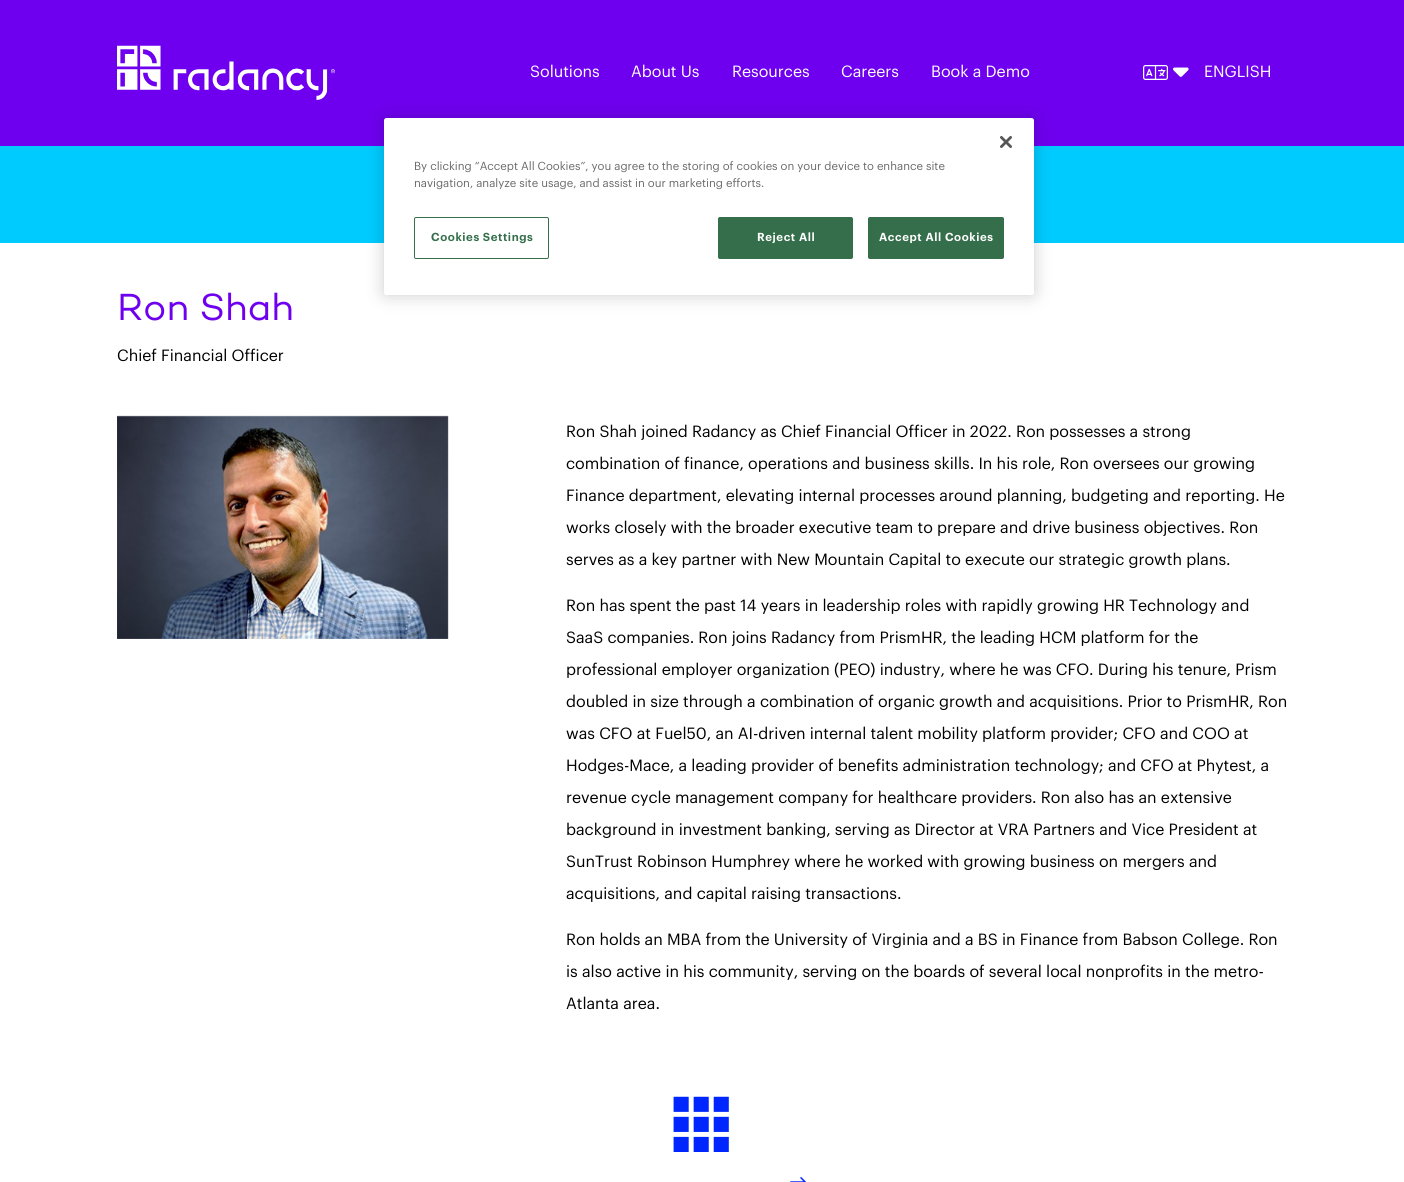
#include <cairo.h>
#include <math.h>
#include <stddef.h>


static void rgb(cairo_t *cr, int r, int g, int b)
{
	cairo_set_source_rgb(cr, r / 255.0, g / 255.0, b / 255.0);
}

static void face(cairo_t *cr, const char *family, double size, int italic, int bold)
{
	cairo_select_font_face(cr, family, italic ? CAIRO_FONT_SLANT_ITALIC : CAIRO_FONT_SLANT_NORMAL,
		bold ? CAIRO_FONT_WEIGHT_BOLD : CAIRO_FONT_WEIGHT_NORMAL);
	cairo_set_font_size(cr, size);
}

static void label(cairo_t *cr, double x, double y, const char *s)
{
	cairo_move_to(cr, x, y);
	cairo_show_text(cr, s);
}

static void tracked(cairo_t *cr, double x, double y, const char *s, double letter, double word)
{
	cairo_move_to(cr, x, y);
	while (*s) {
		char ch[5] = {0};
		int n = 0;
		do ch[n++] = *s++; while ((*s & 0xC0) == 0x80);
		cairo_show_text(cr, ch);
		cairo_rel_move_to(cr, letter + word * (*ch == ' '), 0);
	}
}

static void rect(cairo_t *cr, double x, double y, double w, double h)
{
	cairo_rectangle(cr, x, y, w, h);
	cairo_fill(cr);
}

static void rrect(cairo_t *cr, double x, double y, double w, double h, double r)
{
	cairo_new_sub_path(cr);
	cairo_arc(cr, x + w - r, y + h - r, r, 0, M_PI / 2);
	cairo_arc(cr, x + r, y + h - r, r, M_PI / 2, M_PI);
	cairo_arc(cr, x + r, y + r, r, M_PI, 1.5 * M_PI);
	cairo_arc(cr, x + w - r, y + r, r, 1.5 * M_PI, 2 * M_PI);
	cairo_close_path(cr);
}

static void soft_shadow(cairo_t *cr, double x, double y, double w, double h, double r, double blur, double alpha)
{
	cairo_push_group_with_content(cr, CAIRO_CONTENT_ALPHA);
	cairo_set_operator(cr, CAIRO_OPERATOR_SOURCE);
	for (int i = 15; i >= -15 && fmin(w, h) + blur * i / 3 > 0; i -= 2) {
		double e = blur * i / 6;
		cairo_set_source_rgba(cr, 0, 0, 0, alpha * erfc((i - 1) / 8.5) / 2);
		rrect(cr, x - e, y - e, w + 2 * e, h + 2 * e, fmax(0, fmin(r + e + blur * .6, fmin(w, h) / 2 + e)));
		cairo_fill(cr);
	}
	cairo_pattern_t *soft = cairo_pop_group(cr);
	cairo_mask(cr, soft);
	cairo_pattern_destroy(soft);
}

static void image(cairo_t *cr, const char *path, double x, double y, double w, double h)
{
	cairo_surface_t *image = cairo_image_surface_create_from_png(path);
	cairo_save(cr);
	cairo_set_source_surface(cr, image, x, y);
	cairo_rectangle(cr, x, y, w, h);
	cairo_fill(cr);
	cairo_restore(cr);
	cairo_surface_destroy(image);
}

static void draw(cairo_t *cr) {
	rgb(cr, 255, 255, 255);
	cairo_paint(cr);
	rgb(cr, 111, 0, 239);
	rect(cr, 0, 0, 1404, 146);
	image(cr, "image0.png", 117, 45, 218, 55);
	face(cr, "Graphik", 15.95, 0, 0);
	rgb(cr, 255, 255, 255);
	label(cr, 530, 77, "Solutions");
	label(cr, 631, 77, "About Us");
	label(cr, 732, 77, "Resources");
	label(cr, 841, 77, "Careers");
	label(cr, 931, 77, "Book a Demo");
	image(cr, "image1.png", 1143, 65, 25, 15);
	image(cr, "image2.png", 1173, 67, 16, 10);
	label(cr, 1204, 77, "ENGLISH");
	rgb(cr, 0, 203, 255);
	rect(cr, 0, 146, 1404, 97);
	face(cr, "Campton", 38.5, 0, 0);
	rgb(cr, 111, 0, 239);
	label(cr, 117, 320, "Ron Shah");
	face(cr, "Graphik", 15.95, 0, 0);
	rgb(cr, 0, 0, 0);
	label(cr, 117, 361, "Chief Financial Officer");
	image(cr, "image3.png", 117, 415, 332, 224);
	label(cr, 566, 437, "Ron Shah joined Radancy as Chief Financial Officer in 2022. Ron possesses a strong");
	label(cr, 566, 469, "combination of finance, operations and business skills. In his role, Ron oversees our growing");
	label(cr, 566, 501, "Finance department, elevating internal processes around planning, budgeting and reporting. He");
	label(cr, 566, 533, "works closely with the broader executive team to prepare and drive business objectives. Ron");
	label(cr, 566, 565, "serves as a key partner with New Mountain Capital to execute our strategic growth plans.");
	label(cr, 566, 611, "Ron has spent the past 14 years in leadership roles with rapidly growing HR Technology and");
	label(cr, 566, 643, "SaaS companies. Ron joins Radancy from PrismHR, the leading HCM platform for the");
	label(cr, 566, 675, "professional employer organization (PEO) industry, where he was CFO. During his tenure, Prism");
	label(cr, 566, 707, "doubled in size through a combination of organic growth and acquisitions. Prior to PrismHR, Ron");
	label(cr, 566, 739, "was CFO at Fuel50, an AI-driven internal talent mobility platform provider; CFO and COO at");
	label(cr, 566, 771, "Hodges-Mace, a leading provider of benefits administration technology; and CFO at Phytest, a");
	label(cr, 566, 803, "revenue cycle management company for healthcare providers. Ron also has an extensive");
	label(cr, 566, 835, "background in investment banking, serving as Director at VRA Partners and Vice President at");
	label(cr, 566, 867, "SunTrust Robinson Humphrey where he worked with growing business on mergers and");
	label(cr, 566, 899, "acquisitions, and capital raising transactions.");
	label(cr, 566, 945, "Ron holds an MBA from the University of Virginia and a BS in Finance from Babson College. Ron");
	label(cr, 566, 977, "is also active in his community, serving on the boards of several local nonprofits in the metro-");
	label(cr, 566, 1009, "Atlanta area.");
	image(cr, "image4.png", 673, 1096, 56, 56);
	image(cr, "image5.png", 790, 1177, 16, 5);
	rgb(cr, 0, 0, 0);
	soft_shadow(cr, 384, 118, 650, 177, 2.5, 9, 0.2);
	rgb(cr, 255, 255, 255);
	rrect(cr, 384, 118, 650, 177, 2.5);
	cairo_fill(cr);
	image(cr, "image6.png", 1000, 136, 12, 12);
	face(cr, "Graphik", 11.4, 0, 0);
	rgb(cr, 105, 105, 105);
	label(cr, 414, 170, "By clicking “Accept All Cookies”, you agree to the storing of cookies on your device to enhance site");
	label(cr, 414, 187, "navigation, analyze site usage, and assist in our marketing efforts.");
	rrect(cr, 414.5, 217.5, 134, 41, 1.5);
	rgb(cr, 52, 110, 74);
	cairo_set_line_width(cr, 1);
	cairo_stroke(cr);
	face(cr, "Graphik SemiBold", 11.4, 0, 0);
	tracked(cr, 431, 241, "Cookies Settings", 0.6, 0);
	rrect(cr, 718.5, 217.5, 134, 41, 1.5);
	cairo_fill_preserve(cr);
	cairo_stroke(cr);
	rgb(cr, 255, 255, 255);
	tracked(cr, 757, 241, "Reject All", 0.6, 0);
	rgb(cr, 52, 110, 74);
	rrect(cr, 868.5, 217.5, 135, 41, 1.5);
	cairo_fill_preserve(cr);
	cairo_stroke(cr);
	rgb(cr, 255, 255, 255);
	tracked(cr, 879, 241, "Accept All Cookies", 0.6, 0);
}

int main(void) {
	cairo_surface_t *surface = cairo_image_surface_create(CAIRO_FORMAT_RGB24, 1404, 1182);
	cairo_t *cr = cairo_create(surface);
	cairo_font_options_t *options = cairo_font_options_create();
	cairo_font_options_set_hint_metrics(options, CAIRO_HINT_METRICS_OFF);
	cairo_font_options_set_hint_style(options, CAIRO_HINT_STYLE_NONE);
	cairo_set_font_options(cr, options);
	cairo_set_miter_limit(cr, 4);
	draw(cr);
	cairo_surface_write_to_png(surface, "render.png");
	cairo_font_options_destroy(options);
	cairo_destroy(cr);
	cairo_surface_destroy(surface);
	return 0;
}
